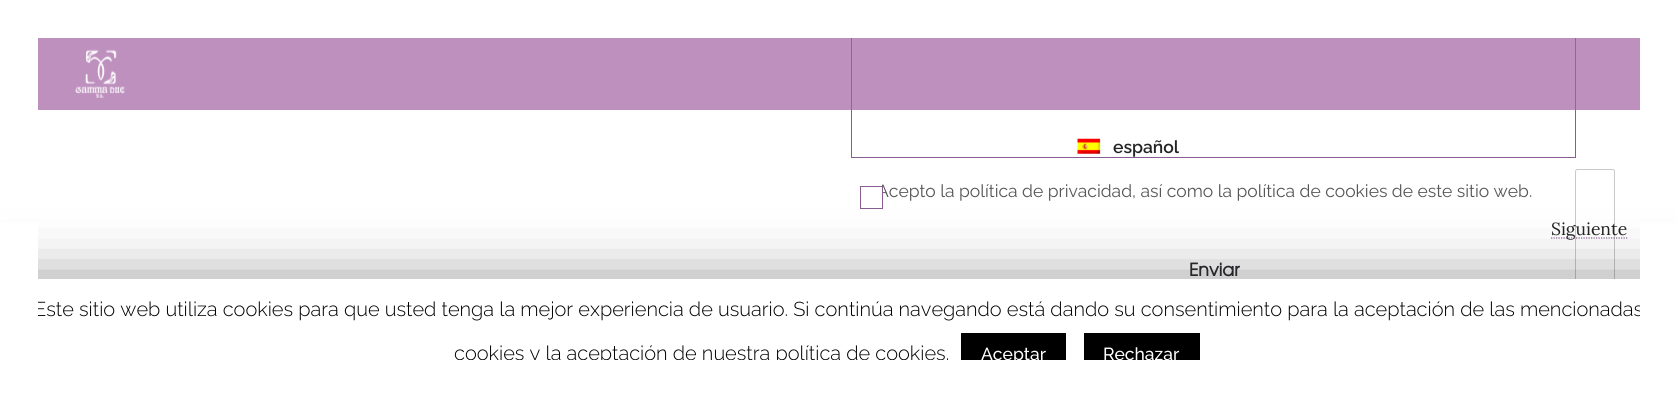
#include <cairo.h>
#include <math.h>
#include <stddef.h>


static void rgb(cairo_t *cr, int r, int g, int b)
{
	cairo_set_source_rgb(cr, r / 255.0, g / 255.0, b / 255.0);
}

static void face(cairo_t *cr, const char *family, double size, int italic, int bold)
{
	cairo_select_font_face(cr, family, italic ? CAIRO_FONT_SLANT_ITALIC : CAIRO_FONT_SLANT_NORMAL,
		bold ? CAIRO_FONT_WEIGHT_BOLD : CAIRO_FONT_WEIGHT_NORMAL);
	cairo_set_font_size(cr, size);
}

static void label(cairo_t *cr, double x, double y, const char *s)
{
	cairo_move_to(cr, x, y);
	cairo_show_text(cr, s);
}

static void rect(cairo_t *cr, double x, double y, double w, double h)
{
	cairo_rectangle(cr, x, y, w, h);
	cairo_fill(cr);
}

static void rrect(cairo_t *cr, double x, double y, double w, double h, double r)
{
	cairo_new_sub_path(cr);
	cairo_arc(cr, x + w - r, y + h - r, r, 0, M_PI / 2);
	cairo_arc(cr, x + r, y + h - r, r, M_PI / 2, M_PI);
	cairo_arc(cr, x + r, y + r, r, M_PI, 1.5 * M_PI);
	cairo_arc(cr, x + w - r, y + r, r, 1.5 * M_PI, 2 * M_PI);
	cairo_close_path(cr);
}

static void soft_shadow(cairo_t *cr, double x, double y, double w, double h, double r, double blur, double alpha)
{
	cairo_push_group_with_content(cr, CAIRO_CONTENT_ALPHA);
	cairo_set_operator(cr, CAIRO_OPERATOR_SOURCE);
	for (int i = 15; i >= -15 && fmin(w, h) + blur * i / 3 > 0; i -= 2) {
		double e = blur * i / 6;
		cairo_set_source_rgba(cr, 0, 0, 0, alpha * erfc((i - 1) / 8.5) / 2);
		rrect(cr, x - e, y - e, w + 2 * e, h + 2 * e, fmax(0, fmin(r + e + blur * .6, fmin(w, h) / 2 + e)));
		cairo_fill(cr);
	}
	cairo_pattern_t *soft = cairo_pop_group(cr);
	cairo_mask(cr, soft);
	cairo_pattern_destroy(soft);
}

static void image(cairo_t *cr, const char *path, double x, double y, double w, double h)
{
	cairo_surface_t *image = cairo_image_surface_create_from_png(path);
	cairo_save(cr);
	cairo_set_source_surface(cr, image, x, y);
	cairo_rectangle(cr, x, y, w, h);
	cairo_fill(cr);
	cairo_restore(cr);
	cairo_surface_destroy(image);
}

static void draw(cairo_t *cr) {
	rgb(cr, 255, 255, 255);
	cairo_paint(cr);
	cairo_rectangle(cr, 851.5, -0.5, 724, 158);
	rgb(cr, 137, 93, 145);
	cairo_set_line_width(cr, 1);
	cairo_stroke(cr);
	rgb(cr, 255, 255, 255);
	rect(cr, 851, 0, 725, 38);
	cairo_set_source_rgba(cr, 0.639, 0.38, 0.639, 0.7);
	rect(cr, 38, 38, 1602, 72);
	image(cr, "image0.png", 75, 49, 50, 49);
	image(cr, "image1.png", 1077, 138, 24, 16);
	face(cr, "Raleway SemiBold", 17.5, 0, 0);
	rgb(cr, 36, 36, 36);
	label(cr, 1113, 153, "español");
	face(cr, "Raleway", 17.5, 0, 0);
	rgb(cr, 86, 86, 86);
	label(cr, 877, 197, "Acepto la política de privacidad, así como la política de cookies de este sitio web.");
	rgb(cr, 255, 255, 255);
	rect(cr, 877, 187, 5, 10);
	cairo_rectangle(cr, 860.5, 186.5, 22, 22);
	rgb(cr, 137, 93, 145);
	cairo_stroke(cr);
	rrect(cr, 1575.5, 169.5, 39, 118, 2);
	rgb(cr, 201, 201, 201);
	cairo_stroke(cr);
	face(cr, "Lora", 17.5, 0, 0);
	rgb(cr, 36, 36, 36);
	label(cr, 1551, 235, "Siguiente");
	cairo_new_path(cr);
	cairo_move_to(cr, 1551, 238);
	cairo_line_to(cr, 1627.5, 238);
	rgb(cr, 137, 93, 145);
	cairo_set_line_width(cr, 1.2);
	cairo_set_dash(cr, (double[]){1.25, 1.25}, 2, 0);
	cairo_stroke(cr);
	rgb(cr, 0, 0, 0);
	soft_shadow(cr, 0, 285, 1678, 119, 0, 31, 0.5);
	rgb(cr, 255, 255, 255);
	rect(cr, 38, 279, 1602, 81);
	face(cr, "Raleway Light", 20, 0, 0);
	rgb(cr, 0, 0, 0);
	label(cr, 34, 316, "Este sitio web utiliza cookies para que usted tenga la mejor experiencia de usuario. Si continúa navegando está dando su consentimiento para la aceptación de las mencionadas");
	rgb(cr, 255, 255, 255);
	rect(cr, 0, 223, 38, 174);
	face(cr, "TeX Gyre Adventor", 17.5, 0, 1);
	rgb(cr, 40, 38, 43);
	label(cr, 1189, 276, "Enviar");
	rgb(cr, 255, 255, 255);
	rect(cr, 1640, 223, 37, 174);
	face(cr, "Raleway Light", 20, 0, 0);
	rgb(cr, 0, 0, 0);
	label(cr, 454, 360, "cookies y la aceptación de nuestra política de cookies.");
	rect(cr, 961, 333, 105, 27);
	face(cr, "Raleway Medium", 17.5, 0, 0);
	rgb(cr, 255, 255, 255);
	label(cr, 981, 360, "Aceptar");
	rgb(cr, 0, 0, 0);
	rect(cr, 1084, 333, 116, 27);
	rgb(cr, 255, 255, 255);
	label(cr, 1103, 360, "Rechazar");
	rect(cr, 38, 360, 1602, 37);
}

int main(void) {
	cairo_surface_t *surface = cairo_image_surface_create(CAIRO_FORMAT_RGB24, 1677, 397);
	cairo_t *cr = cairo_create(surface);
	cairo_font_options_t *options = cairo_font_options_create();
	cairo_font_options_set_hint_metrics(options, CAIRO_HINT_METRICS_OFF);
	cairo_font_options_set_hint_style(options, CAIRO_HINT_STYLE_NONE);
	cairo_set_font_options(cr, options);
	cairo_set_miter_limit(cr, 4);
	draw(cr);
	cairo_surface_write_to_png(surface, "render.png");
	cairo_font_options_destroy(options);
	cairo_destroy(cr);
	cairo_surface_destroy(surface);
	return 0;
}
